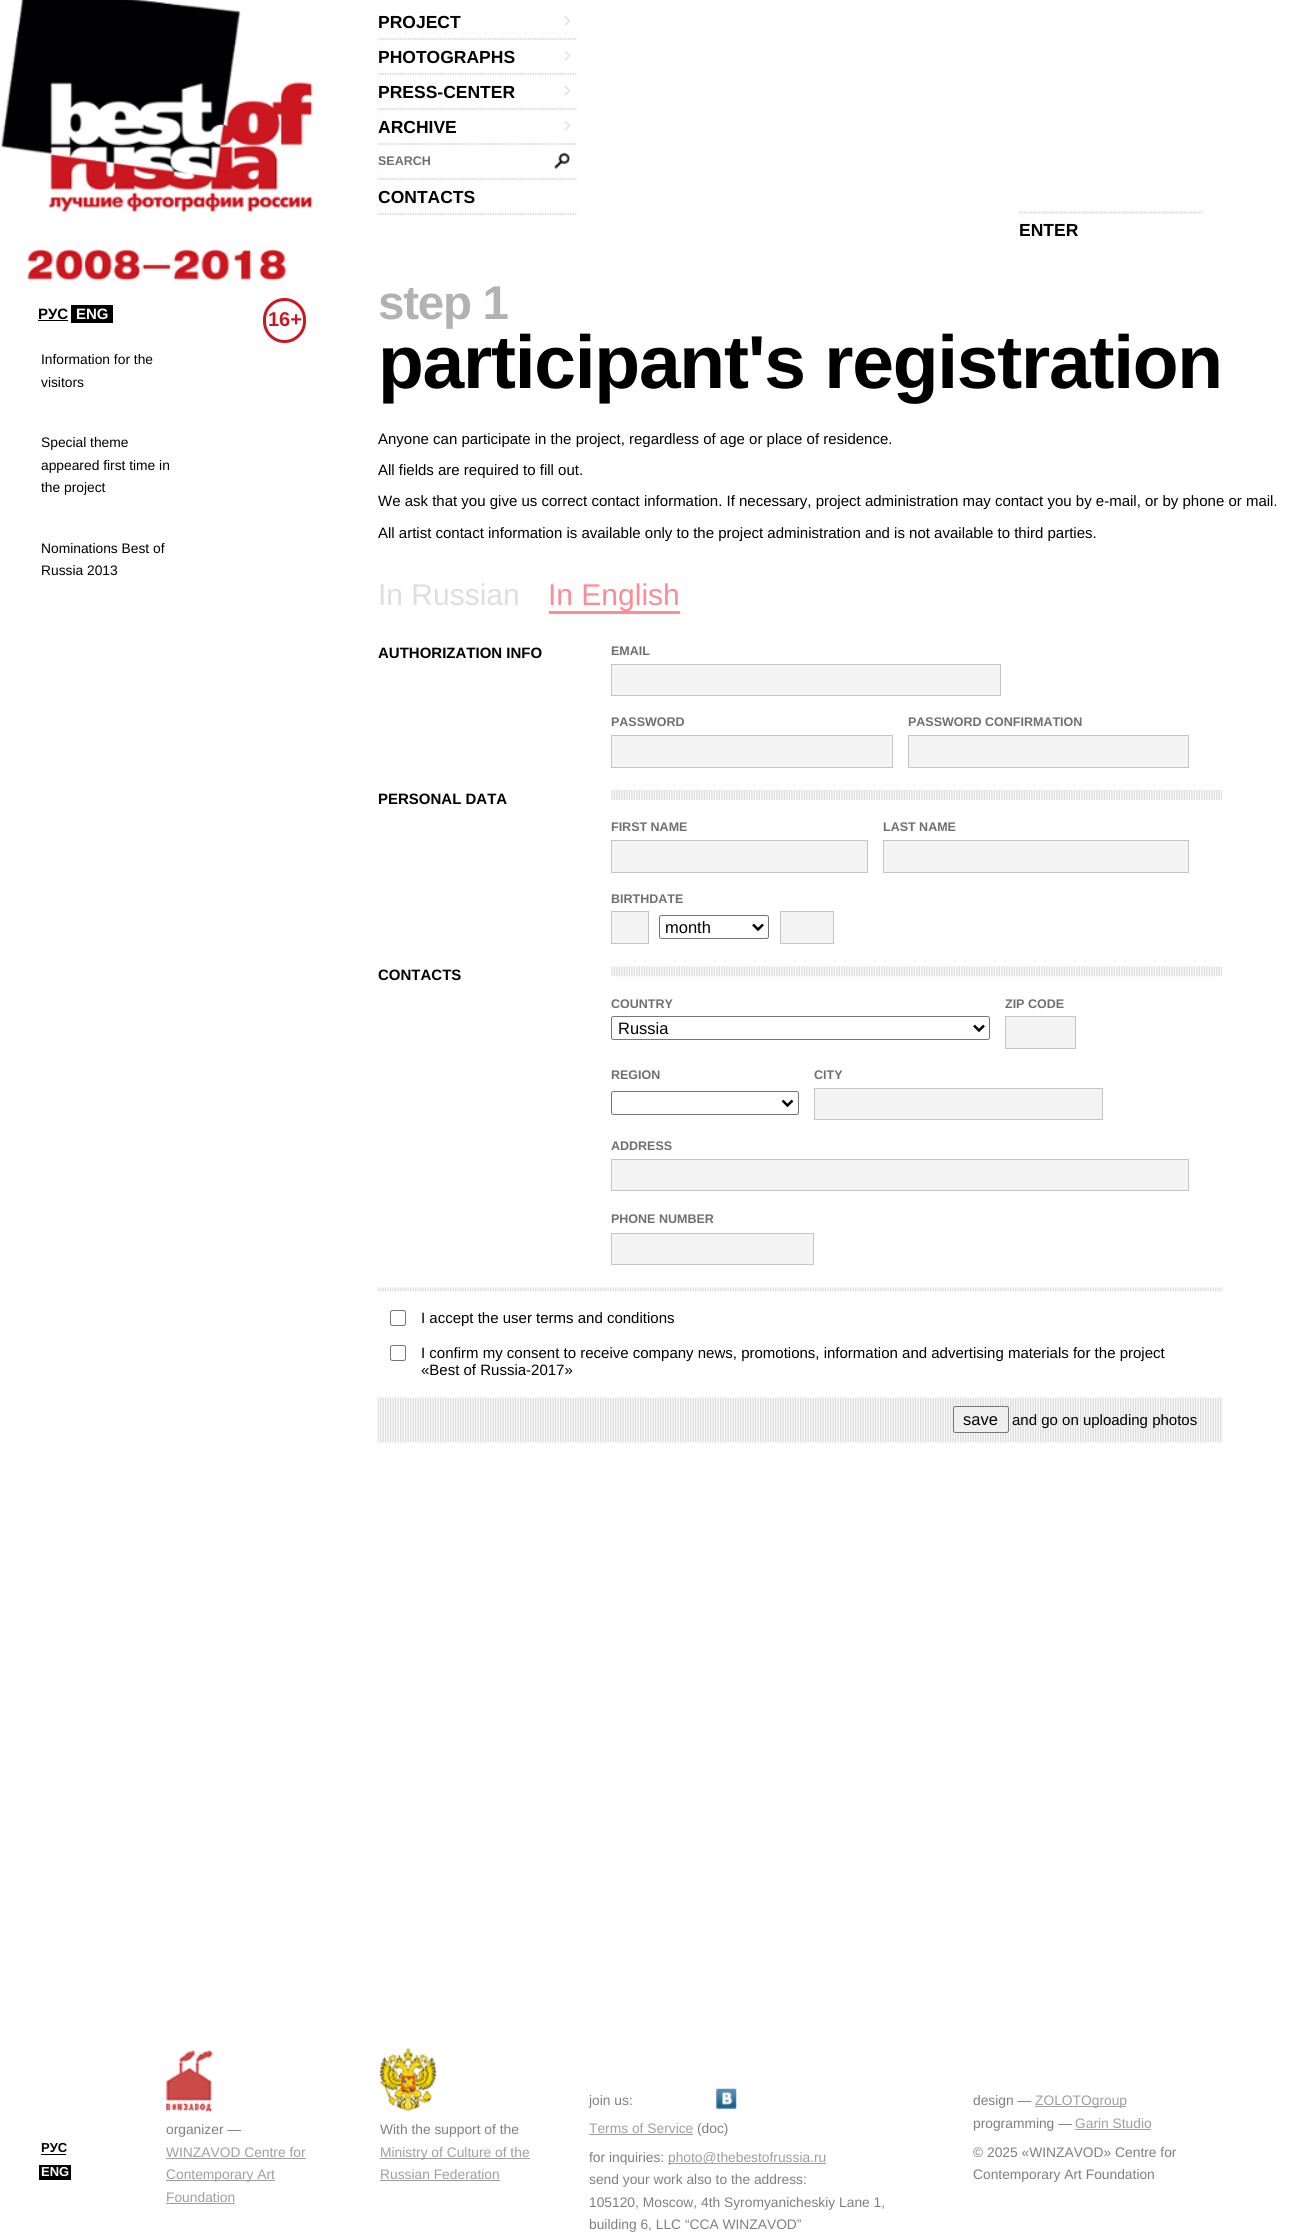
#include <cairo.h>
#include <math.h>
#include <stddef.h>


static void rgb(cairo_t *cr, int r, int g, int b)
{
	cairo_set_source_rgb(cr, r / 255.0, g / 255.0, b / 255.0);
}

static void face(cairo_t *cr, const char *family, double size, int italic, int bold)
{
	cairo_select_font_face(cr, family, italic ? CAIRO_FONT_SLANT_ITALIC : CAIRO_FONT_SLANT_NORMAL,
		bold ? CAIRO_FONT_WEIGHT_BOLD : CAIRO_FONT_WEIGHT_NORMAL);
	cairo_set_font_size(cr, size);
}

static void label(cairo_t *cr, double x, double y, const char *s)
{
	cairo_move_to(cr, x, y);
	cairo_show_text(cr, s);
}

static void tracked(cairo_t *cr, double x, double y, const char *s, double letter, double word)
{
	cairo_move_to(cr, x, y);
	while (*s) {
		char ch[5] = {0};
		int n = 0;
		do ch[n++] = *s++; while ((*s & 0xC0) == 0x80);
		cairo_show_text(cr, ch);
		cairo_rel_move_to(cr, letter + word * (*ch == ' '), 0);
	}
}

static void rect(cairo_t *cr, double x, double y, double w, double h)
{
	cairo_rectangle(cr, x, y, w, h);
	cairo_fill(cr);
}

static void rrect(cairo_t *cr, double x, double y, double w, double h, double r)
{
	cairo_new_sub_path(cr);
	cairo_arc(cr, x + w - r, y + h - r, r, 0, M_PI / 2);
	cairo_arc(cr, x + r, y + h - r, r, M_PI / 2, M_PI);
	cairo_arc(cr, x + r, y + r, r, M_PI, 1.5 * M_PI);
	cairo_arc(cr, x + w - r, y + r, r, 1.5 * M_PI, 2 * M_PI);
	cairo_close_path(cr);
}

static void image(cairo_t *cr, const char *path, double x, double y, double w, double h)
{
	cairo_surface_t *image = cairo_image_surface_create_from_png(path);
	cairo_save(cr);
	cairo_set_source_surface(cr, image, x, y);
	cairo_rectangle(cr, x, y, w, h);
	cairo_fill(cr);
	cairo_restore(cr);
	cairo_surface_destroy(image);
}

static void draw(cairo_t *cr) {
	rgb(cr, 255, 255, 255);
	cairo_paint(cr);
	image(cr, "image0.png", 1, 0, 312, 281);
	image(cr, "image1.png", 377, 5, 201, 35);
	rgb(cr, 255, 255, 255);
	rect(cr, 378, 5, 200, 33);
	face(cr, "Liberation Sans", 17.5, 0, 1);
	rgb(cr, 0, 0, 0);
	label(cr, 378, 28, "PROJECT");
	image(cr, "image2.png", 565, 16, 5, 9);
	image(cr, "image1.png", 377, 40, 201, 35);
	rgb(cr, 255, 255, 255);
	rect(cr, 378, 40, 200, 33);
	rgb(cr, 0, 0, 0);
	label(cr, 378, 63, "PHOTOGRAPHS");
	image(cr, "image2.png", 565, 51, 5, 9);
	image(cr, "image1.png", 377, 75, 201, 35);
	rgb(cr, 255, 255, 255);
	rect(cr, 378, 75, 200, 33);
	rgb(cr, 0, 0, 0);
	label(cr, 378, 98, "PRESS-CENTER");
	image(cr, "image2.png", 565, 86, 5, 9);
	image(cr, "image1.png", 377, 110, 201, 35);
	rgb(cr, 255, 255, 255);
	rect(cr, 378, 110, 200, 33);
	rgb(cr, 0, 0, 0);
	label(cr, 378, 133, "ARCHIVE");
	image(cr, "image2.png", 565, 121, 5, 9);
	image(cr, "image1.png", 377, 145, 201, 35);
	rgb(cr, 255, 255, 255);
	rect(cr, 378, 145, 200, 33);
	face(cr, "Liberation Sans", 12.5, 0, 1);
	rgb(cr, 111, 111, 111);
	label(cr, 378, 165, "SEARCH");
	image(cr, "image3.png", 553, 152, 17, 17);
	image(cr, "image1.png", 377, 180, 201, 35);
	rgb(cr, 255, 255, 255);
	rect(cr, 378, 180, 200, 33);
	face(cr, "Liberation Sans", 17.5, 0, 1);
	rgb(cr, 0, 0, 0);
	label(cr, 378, 203, "CONTACTS");
	image(cr, "image4.png", 1019, 211, 184, 3);
	label(cr, 1019, 236, "ENTER");
	face(cr, "Liberation Sans", 15, 0, 1);
	label(cr, 38, 319, "РУС");
	rect(cr, 38, 320, 30, 1);
	rect(cr, 71, 305, 42, 18);
	rgb(cr, 255, 255, 255);
	label(cr, 76, 319, "ENG");
	rrect(cr, 264.5, 299.5, 40, 42, 20);
	rgb(cr, 203, 23, 32);
	cairo_set_line_width(cr, 3);
	cairo_stroke(cr);
	face(cr, "Liberation Sans", 20, 0, 1);
	label(cr, 268, 326, "16+");
	face(cr, "Liberation Sans", 13.8, 0, 0);
	rgb(cr, 0, 0, 0);
	label(cr, 41, 364, "Information for the");
	label(cr, 41, 387, "visitors");
	label(cr, 41, 447, "Special theme");
	label(cr, 41, 470, "appeared first time in");
	label(cr, 41, 492, "the project");
	label(cr, 41, 553, "Nominations Best of");
	label(cr, 41, 575, "Russia 2013");
	face(cr, "Liberation Sans", 47.5, 0, 1);
	rgb(cr, 178, 178, 178);
	tracked(cr, 378, 319, "step 1", -1.25, 0);
	face(cr, "Liberation Sans", 75, 0, 1);
	rgb(cr, 0, 0, 0);
	tracked(cr, 378, 388, "participant's registration", -1.25, 0);
	face(cr, "Liberation Sans", 15, 0, 0);
	label(cr, 378, 444, "Anyone can participate in the project, regardless of age or place of residence.");
	label(cr, 378, 475, "All fields are required to fill out.");
	label(cr, 378, 506, "We ask that you give us correct contact information. If necessary, project administration may contact you by e-mail, or by phone or mail.");
	label(cr, 378, 538, "All artist contact information is available only to the project administration and is not available to third parties.");
	face(cr, "Liberation Sans", 30, 0, 0);
	rgb(cr, 222, 222, 222);
	label(cr, 378, 605, "In Russian");
	rgb(cr, 255, 140, 149);
	rect(cr, 549, 611, 131, 3);
	label(cr, 548, 605, "In English");
	face(cr, "Liberation Sans", 15, 0, 1);
	rgb(cr, 0, 0, 0);
	label(cr, 378, 658, "AUTHORIZATION INFO");
	face(cr, "Liberation Sans", 12.5, 0, 1);
	rgb(cr, 111, 111, 111);
	label(cr, 611, 655, "EMAIL");
	rgb(cr, 244, 244, 244);
	cairo_rectangle(cr, 611.5, 664.5, 389, 31);
	cairo_fill_preserve(cr);
	rgb(cr, 197, 197, 197);
	cairo_set_line_width(cr, 1);
	cairo_stroke(cr);
	rgb(cr, 111, 111, 111);
	label(cr, 611, 726, "PASSWORD");
	rgb(cr, 244, 244, 244);
	cairo_rectangle(cr, 611.5, 735.5, 281, 32);
	cairo_fill_preserve(cr);
	rgb(cr, 197, 197, 197);
	cairo_stroke(cr);
	rgb(cr, 111, 111, 111);
	label(cr, 908, 726, "PASSWORD CONFIRMATION");
	rgb(cr, 244, 244, 244);
	cairo_rectangle(cr, 908.5, 735.5, 280, 32);
	cairo_fill_preserve(cr);
	rgb(cr, 197, 197, 197);
	cairo_stroke(cr);
	face(cr, "Liberation Sans", 15, 0, 1);
	rgb(cr, 0, 0, 0);
	label(cr, 378, 804, "PERSONAL DATA");
	image(cr, "image5.png", 611, 790, 612, 10);
	face(cr, "Liberation Sans", 12.5, 0, 1);
	rgb(cr, 111, 111, 111);
	label(cr, 611, 831, "FIRST NAME");
	rgb(cr, 244, 244, 244);
	cairo_rectangle(cr, 611.5, 840.5, 256, 32);
	cairo_fill_preserve(cr);
	rgb(cr, 197, 197, 197);
	cairo_stroke(cr);
	rgb(cr, 111, 111, 111);
	label(cr, 883, 831, "LAST NAME");
	rgb(cr, 244, 244, 244);
	cairo_rectangle(cr, 883.5, 840.5, 305, 32);
	cairo_fill_preserve(cr);
	rgb(cr, 197, 197, 197);
	cairo_stroke(cr);
	rgb(cr, 111, 111, 111);
	label(cr, 611, 903, "BIRTHDATE");
	rgb(cr, 244, 244, 244);
	cairo_rectangle(cr, 611.5, 911.5, 37, 32);
	cairo_fill_preserve(cr);
	rgb(cr, 197, 197, 197);
	cairo_stroke(cr);
	rrect(cr, 659.5, 915.5, 109, 23, 2);
	rgb(cr, 118, 118, 118);
	cairo_stroke(cr);
	cairo_new_path(cr);
	cairo_move_to(cr, 753, 924.5);
	cairo_line_to(cr, 758, 929.5);
	cairo_line_to(cr, 763, 924.5);
	rgb(cr, 0, 0, 0);
	cairo_set_line_width(cr, 2.5);
	cairo_stroke(cr);
	face(cr, "Liberation Sans", 16.5, 0, 0);
	label(cr, 665, 933, "month");
	rgb(cr, 244, 244, 244);
	cairo_rectangle(cr, 780.5, 911.5, 53, 32);
	cairo_fill_preserve(cr);
	rgb(cr, 197, 197, 197);
	cairo_set_line_width(cr, 1);
	cairo_stroke(cr);
	face(cr, "Liberation Sans", 15, 0, 1);
	rgb(cr, 0, 0, 0);
	label(cr, 378, 980, "CONTACTS");
	image(cr, "image6.png", 611, 966, 612, 11);
	face(cr, "Liberation Sans", 12.5, 0, 1);
	rgb(cr, 111, 111, 111);
	label(cr, 611, 1008, "COUNTRY");
	rrect(cr, 611.5, 1016.5, 378, 23, 2);
	rgb(cr, 118, 118, 118);
	cairo_stroke(cr);
	cairo_new_path(cr);
	cairo_move_to(cr, 974, 1025.5);
	cairo_line_to(cr, 979, 1030.5);
	cairo_line_to(cr, 984, 1025.5);
	rgb(cr, 0, 0, 0);
	cairo_set_line_width(cr, 2.5);
	cairo_stroke(cr);
	face(cr, "Liberation Sans", 16.5, 0, 0);
	label(cr, 618, 1034, "Russia");
	face(cr, "Liberation Sans", 12.5, 0, 1);
	rgb(cr, 111, 111, 111);
	label(cr, 1005, 1008, "ZIP CODE");
	rgb(cr, 244, 244, 244);
	cairo_rectangle(cr, 1005.5, 1016.5, 70, 32);
	cairo_fill_preserve(cr);
	rgb(cr, 197, 197, 197);
	cairo_set_line_width(cr, 1);
	cairo_stroke(cr);
	rgb(cr, 111, 111, 111);
	label(cr, 611, 1079, "REGION");
	rrect(cr, 611.5, 1091.5, 187, 23, 2);
	rgb(cr, 118, 118, 118);
	cairo_stroke(cr);
	cairo_new_path(cr);
	cairo_move_to(cr, 782.5, 1100.5);
	cairo_line_to(cr, 787.5, 1105.5);
	cairo_line_to(cr, 792.5, 1100.5);
	rgb(cr, 0, 0, 0);
	cairo_set_line_width(cr, 2.5);
	cairo_stroke(cr);
	rgb(cr, 111, 111, 111);
	label(cr, 814, 1079, "CITY");
	rgb(cr, 244, 244, 244);
	cairo_rectangle(cr, 814.5, 1088.5, 288, 31);
	cairo_fill_preserve(cr);
	rgb(cr, 197, 197, 197);
	cairo_set_line_width(cr, 1);
	cairo_stroke(cr);
	rgb(cr, 111, 111, 111);
	label(cr, 611, 1150, "ADDRESS");
	rgb(cr, 244, 244, 244);
	cairo_rectangle(cr, 611.5, 1159.5, 577, 31);
	cairo_fill_preserve(cr);
	rgb(cr, 197, 197, 197);
	cairo_stroke(cr);
	rgb(cr, 111, 111, 111);
	label(cr, 611, 1223, "PHONE NUMBER");
	rgb(cr, 244, 244, 244);
	cairo_rectangle(cr, 611.5, 1233.5, 202, 31);
	cairo_fill_preserve(cr);
	rgb(cr, 197, 197, 197);
	cairo_stroke(cr);
	image(cr, "image7.png", 377, 1287, 846, 5);
	rrect(cr, 390.5, 1310.5, 15, 15, 2);
	rgb(cr, 118, 118, 118);
	cairo_stroke(cr);
	face(cr, "Liberation Sans", 15, 0, 0);
	rgb(cr, 0, 0, 0);
	label(cr, 421, 1323, "I accept the user terms and conditions");
	rrect(cr, 390.5, 1345.5, 15, 15, 2);
	rgb(cr, 118, 118, 118);
	cairo_stroke(cr);
	rgb(cr, 0, 0, 0);
	label(cr, 421, 1358, "I confirm my consent to receive company news, promotions, information and advertising materials for the project");
	label(cr, 421, 1375, "«Best of Russia-2017»");
	image(cr, "image8.png", 377, 1397, 846, 46);
	rgb(cr, 239, 239, 239);
	rrect(cr, 953.5, 1406.5, 55, 26, 2);
	cairo_fill_preserve(cr);
	rgb(cr, 118, 118, 118);
	cairo_stroke(cr);
	face(cr, "Liberation Sans", 16.5, 0, 0);
	rgb(cr, 0, 0, 0);
	label(cr, 963, 1425, "save");
	face(cr, "Liberation Sans", 15, 0, 0);
	label(cr, 1012, 1425, "and go on uploading photos");
	face(cr, "Liberation Sans", 13, 0, 1);
	label(cr, 41, 2152, "РУС");
	rect(cr, 41, 2154, 25, 1);
	rect(cr, 39, 2165, 32, 15);
	rgb(cr, 255, 255, 255);
	label(cr, 41, 2176, "ENG");
	image(cr, "image9.png", 166, 2050, 47, 62);
	face(cr, "Liberation Sans", 13.8, 0, 0);
	rgb(cr, 127, 127, 127);
	label(cr, 166, 2134, "organizer —");
	rgb(cr, 159, 159, 159);
	label(cr, 166, 2157, "WINZAVOD Centre for");
	rect(cr, 166, 2158, 140, 1);
	rect(cr, 166, 2180, 109, 1);
	label(cr, 166, 2179, "Contemporary Art");
	label(cr, 166, 2202, "Foundation");
	rect(cr, 166, 2203, 69, 1);
	image(cr, "image10.png", 380, 2048, 57, 64);
	rgb(cr, 127, 127, 127);
	label(cr, 380, 2134, "With the support of the");
	rgb(cr, 159, 159, 159);
	rect(cr, 380, 2158, 150, 1);
	label(cr, 380, 2157, "Ministry of Culture of the");
	label(cr, 380, 2179, "Russian Federation");
	rect(cr, 380, 2180, 120, 1);
	rgb(cr, 127, 127, 127);
	label(cr, 589, 2105, "join us:");
	image(cr, "image11.png", 716, 2088, 21, 21);
	rgb(cr, 159, 159, 159);
	label(cr, 589, 2133, "Terms of Service");
	rect(cr, 589, 2134, 104, 1);
	rgb(cr, 127, 127, 127);
	label(cr, 697, 2133, "(doc)");
	label(cr, 589, 2162, "for inquiries:");
	rgb(cr, 159, 159, 159);
	rect(cr, 668, 2163, 158, 1);
	label(cr, 668, 2162, "photo@thebestofrussia.ru");
	rgb(cr, 127, 127, 127);
	label(cr, 589, 2184, "send your work also to the address:");
	label(cr, 589, 2207, "105120, Moscow, 4th Syromyanicheskiy Lane 1,");
	label(cr, 589, 2229, "building 6, LLC “CCA WINZAVOD”");
	label(cr, 973, 2105, "design —");
	rgb(cr, 159, 159, 159);
	rect(cr, 1035, 2106, 91, 1);
	label(cr, 1035, 2105, "ZOLOTOgroup");
	rgb(cr, 127, 127, 127);
	label(cr, 973, 2128, "programming —");
	rgb(cr, 159, 159, 159);
	label(cr, 1075, 2128, "Garin Studio");
	rect(cr, 1075, 2129, 76, 1);
	rgb(cr, 127, 127, 127);
	label(cr, 973, 2157, "© 2025 «WINZAVOD» Centre for");
	label(cr, 973, 2179, "Contemporary Art Foundation");
}

int main(void) {
	cairo_surface_t *surface = cairo_image_surface_create(CAIRO_FORMAT_RGB24, 1306, 2234);
	cairo_t *cr = cairo_create(surface);
	cairo_font_options_t *options = cairo_font_options_create();
	cairo_font_options_set_hint_metrics(options, CAIRO_HINT_METRICS_OFF);
	cairo_font_options_set_hint_style(options, CAIRO_HINT_STYLE_NONE);
	cairo_set_font_options(cr, options);
	cairo_set_miter_limit(cr, 4);
	draw(cr);
	cairo_surface_write_to_png(surface, "render.png");
	cairo_font_options_destroy(options);
	cairo_destroy(cr);
	cairo_surface_destroy(surface);
	return 0;
}
